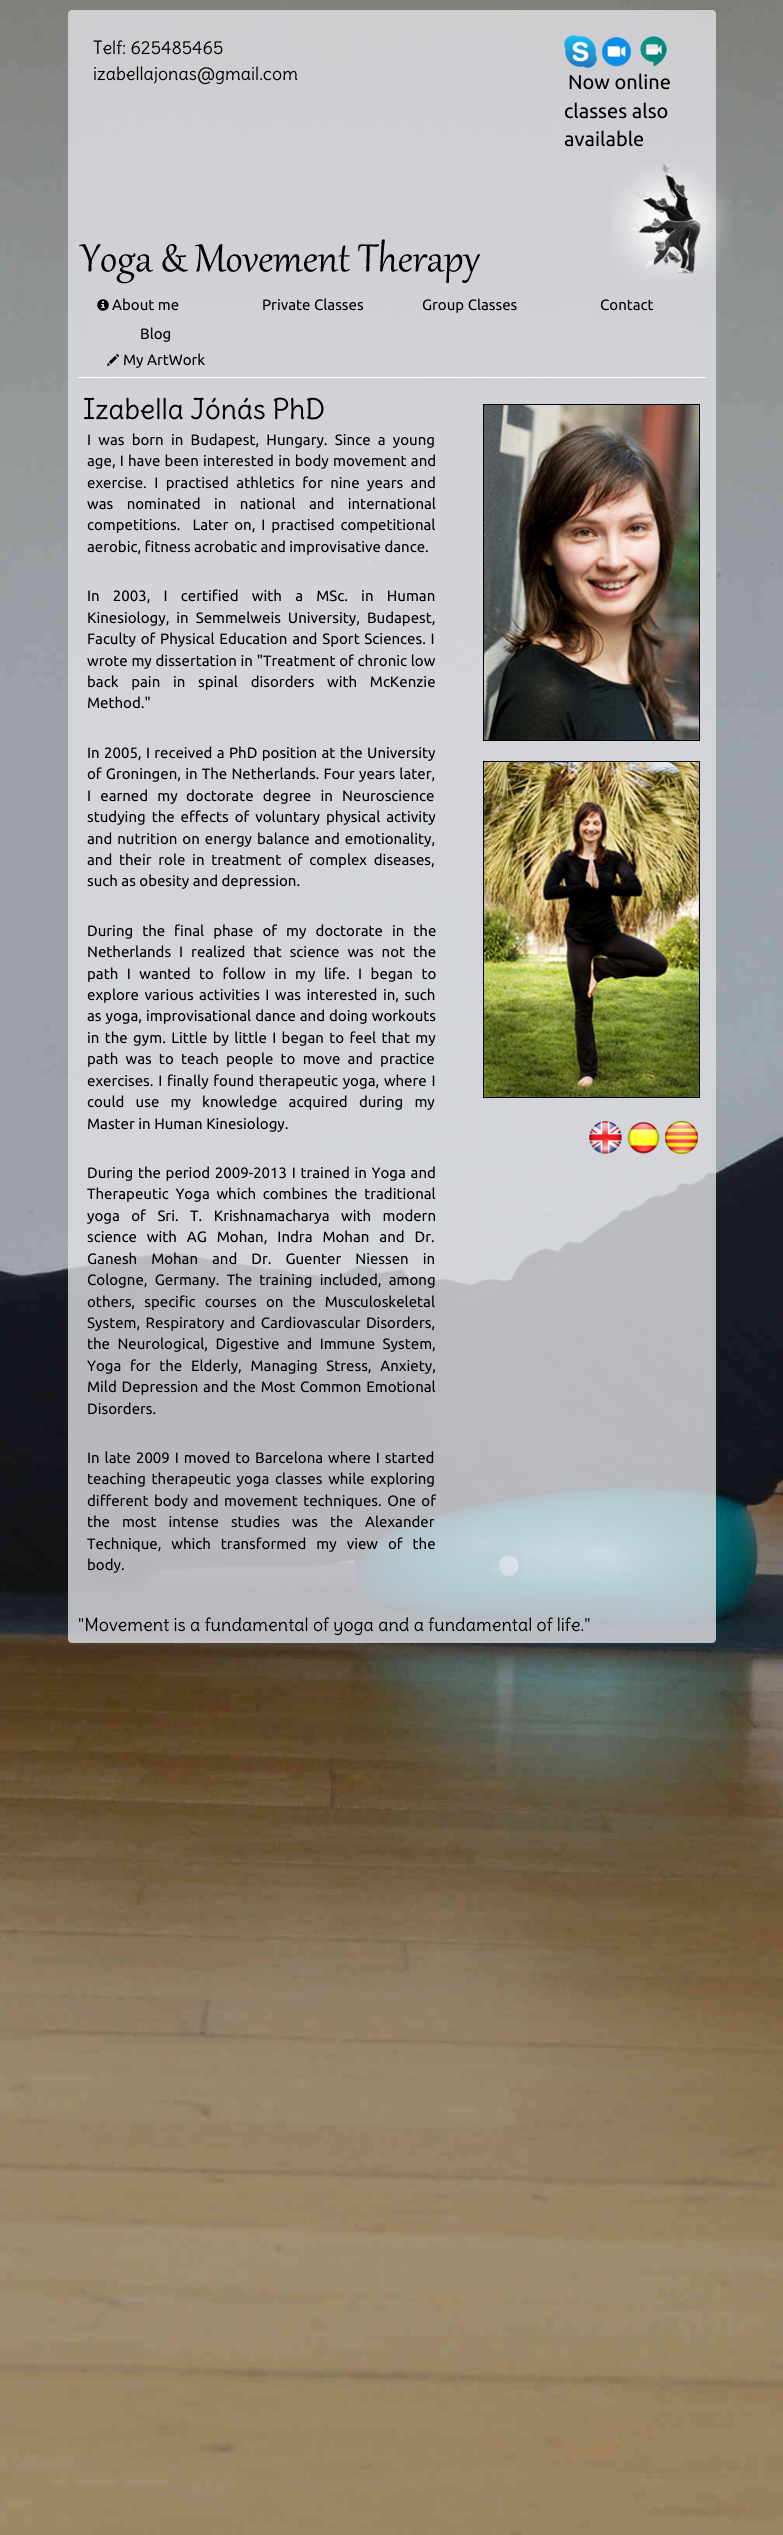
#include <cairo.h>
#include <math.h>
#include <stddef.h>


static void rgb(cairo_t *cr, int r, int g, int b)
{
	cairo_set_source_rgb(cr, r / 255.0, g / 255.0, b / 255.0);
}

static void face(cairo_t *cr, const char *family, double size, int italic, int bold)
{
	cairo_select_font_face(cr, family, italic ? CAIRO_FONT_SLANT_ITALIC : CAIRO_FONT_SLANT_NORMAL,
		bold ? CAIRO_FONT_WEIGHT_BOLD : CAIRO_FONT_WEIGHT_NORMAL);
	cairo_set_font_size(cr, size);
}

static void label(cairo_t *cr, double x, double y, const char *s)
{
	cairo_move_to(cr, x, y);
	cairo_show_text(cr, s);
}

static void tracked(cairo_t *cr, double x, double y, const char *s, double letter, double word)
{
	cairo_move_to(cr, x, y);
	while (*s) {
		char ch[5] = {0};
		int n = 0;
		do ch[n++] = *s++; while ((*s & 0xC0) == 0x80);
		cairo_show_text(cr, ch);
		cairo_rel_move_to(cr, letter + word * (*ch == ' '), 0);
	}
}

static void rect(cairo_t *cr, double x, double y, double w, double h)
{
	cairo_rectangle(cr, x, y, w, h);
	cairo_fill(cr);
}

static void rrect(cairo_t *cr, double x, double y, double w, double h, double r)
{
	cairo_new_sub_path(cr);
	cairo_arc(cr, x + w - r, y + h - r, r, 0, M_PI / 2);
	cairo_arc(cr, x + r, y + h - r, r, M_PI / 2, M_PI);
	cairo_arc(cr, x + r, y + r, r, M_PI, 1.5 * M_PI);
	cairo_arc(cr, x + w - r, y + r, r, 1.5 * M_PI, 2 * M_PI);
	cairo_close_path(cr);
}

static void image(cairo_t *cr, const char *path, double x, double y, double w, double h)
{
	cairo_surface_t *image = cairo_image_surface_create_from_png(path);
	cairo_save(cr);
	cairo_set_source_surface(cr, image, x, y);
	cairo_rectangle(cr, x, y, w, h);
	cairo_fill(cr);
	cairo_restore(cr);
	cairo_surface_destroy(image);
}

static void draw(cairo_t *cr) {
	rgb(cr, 255, 255, 255);
	cairo_paint(cr);
	image(cr, "image0.png", 0, 0, 783, 2535);
	cairo_set_source_rgba(cr, 0.882, 0.882, 0.902, 0.8);
	rrect(cr, 68, 10, 648, 1633, 4);
	cairo_fill(cr);
	face(cr, "Delius", 18, 0, 0);
	rgb(cr, 0, 0, 0);
	label(cr, 93, 54, "Telf: 625485465");
	label(cr, 93, 80, "izabellajonas@gmail.com");
	image(cr, "image1.png", 564, 35, 33, 33);
	image(cr, "image2.png", 601, 36, 31, 31);
	image(cr, "image3.png", 640, 36, 27, 31);
	face(cr, "Ubuntu", 20, 0, 0);
	label(cr, 568, 89, "Now online");
	label(cr, 564, 118, "classes also");
	label(cr, 564, 146, "available");
	image(cr, "image4.png", 79, 239, 402, 45);
	image(cr, "image5.png", 611, 164, 121, 116);
	rgb(cr, 255, 255, 255);
	rect(cr, 78, 377, 628, 1);
	image(cr, "image6.png", 97, 299, 12, 12);
	face(cr, "Ubuntu", 15, 0, 0);
	rgb(cr, 0, 0, 0);
	label(cr, 112, 310, "About me");
	label(cr, 262, 310, "Private Classes");
	label(cr, 422, 310, "Group Classes");
	label(cr, 600, 310, "Contact");
	label(cr, 140, 339, "Blog");
	image(cr, "image7.png", 107, 354, 12, 12);
	label(cr, 123, 365, "My ArtWork");
	face(cr, "Delius", 28, 0, 0);
	label(cr, 83, 419, "Izabella Jónás PhD");
	face(cr, "Ubuntu", 15, 0, 0);
	tracked(cr, 87, 445, "I was born in Budapest, Hungary. Since a young", 0, 3.75);
	tracked(cr, 87, 466, "age, I have been interested in body movement and", 0, 0.75);
	tracked(cr, 87, 488, "exercise. I practised athletics for nine years and", 0, 4);
	tracked(cr, 87, 509, "was nominated in national and international", 0, 10);
	tracked(cr, 87, 530, "competitions.  Later on, I practised competitional", 0, 2.5);
	label(cr, 87, 552, "aerobic, fitness acrobatic and improvisative dance.");
	tracked(cr, 87, 601, "In 2003, I certified with a MSc. in Human", 0, 9.75);
	tracked(cr, 87, 623, "Kinesiology, in Semmelweis University, Budapest,", 0, 3.5);
	tracked(cr, 87, 644, "Faculty of Physical Education and Sport Sciences. I", 0, 1.25);
	tracked(cr, 87, 666, "wrote my dissertation in \"Treatment of chronic low", 0, 0.25);
	tracked(cr, 87, 687, "back pain in spinal disorders with McKenzie", 0, 9.25);
	label(cr, 87, 708, "Method.\"");
	tracked(cr, 87, 758, "In 2005, I received a PhD position at the University", 0, 0.9);
	tracked(cr, 87, 779, "of Groningen, in The Netherlands. Four years later,", 0, 0.75);
	tracked(cr, 87, 801, "I earned my", 0, 5.75);
	tracked(cr, 186, 801, "doctorate degree in Neuroscience", 0, 5.75);
	tracked(cr, 87, 822, "studying the effects of voluntary physical activity", 0, 2.5);
	tracked(cr, 87, 844, "and nutrition on energy balance and emotionality,", 0, 1.5);
	tracked(cr, 87, 865, "and their role in treatment of complex diseases,", 0, 3.25);
	label(cr, 87, 886, "such as obesity and depression.");
	tracked(cr, 87, 936, "During the final phase of my doctorate in the", 0, 5.5);
	tracked(cr, 87, 957, "Netherlands I realized that science was not the", 0, 4.5);
	tracked(cr, 87, 979, "path I wanted to follow in my life. I began to", 0, 5);
	tracked(cr, 87, 1000, "explore various activities I was interested in, such", 0, 2);
	tracked(cr, 87, 1021, "as yoga, improvisational dance and doing workouts", 0, 0.5);
	tracked(cr, 87, 1043, "in the gym. Little by little I began to feel that my", 0, 1.9);
	tracked(cr, 87, 1064, "path was to teach people to move and practice", 0, 3.75);
	tracked(cr, 87, 1086, "exercises. I finally found therapeutic yoga, where I", 0, 1.25);
	tracked(cr, 87, 1107, "could use my knowledge acquired during my", 0, 7.75);
	label(cr, 87, 1129, "Master in Human Kinesiology.");
	tracked(cr, 87, 1178, "During the period 2009-2013 I trained in Yoga and", 0, 1.25);
	tracked(cr, 87, 1199, "Therapeutic Yoga which combines the traditional", 0, 3.25);
	tracked(cr, 87, 1221, "yoga of Sri. T. Krishnamacharya with modern", 0, 8);
	tracked(cr, 87, 1242, "science with AG Mohan, Indra Mohan and Dr.", 0, 6.5);
	tracked(cr, 87, 1264, "Ganesh Mohan and Dr. Guenter Niessen in", 0, 10.5);
	tracked(cr, 87, 1285, "Cologne, Germany. The training included, among", 0, 3.75);
	tracked(cr, 87, 1307, "others, specific courses on the Musculoskeletal", 0, 5.75);
	tracked(cr, 87, 1328, "System, Respiratory and Cardiovascular Disorders,", 0, 2);
	tracked(cr, 87, 1349, "the Neurological, Digestive and Immune System,", 0, 4);
	tracked(cr, 87, 1371, "Yoga for the Elderly, Managing Stress, Anxiety,", 0, 5.25);
	tracked(cr, 87, 1392, "Mild Depression and the Most Common Emotional", 0, 1.25);
	label(cr, 87, 1414, "Disorders.");
	tracked(cr, 87, 1463, "In late 2009 I moved to Barcelona where I started", 0, 1.5);
	tracked(cr, 87, 1484, "teaching therapeutic yoga classes while exploring", 0, 2.25);
	tracked(cr, 87, 1506, "different body and movement techniques. One of", 0, 2);
	tracked(cr, 87, 1527, "the most intense studies was the Alexander", 0, 8.5);
	tracked(cr, 87, 1549, "Technique, which transformed my view of the", 0, 6.5);
	label(cr, 87, 1570, "body.");
	cairo_rectangle(cr, 483.5, 404.5, 216, 336);
	cairo_set_line_width(cr, 1);
	cairo_stroke(cr);
	image(cr, "image8.png", 484, 405, 215, 335);
	cairo_rectangle(cr, 483.5, 761.5, 216, 336);
	cairo_stroke(cr);
	image(cr, "image9.png", 484, 762, 215, 335);
	image(cr, "image10.png", 589, 1121, 33, 33);
	image(cr, "image11.png", 627, 1122, 33, 32);
	image(cr, "image12.png", 665, 1121, 33, 33);
	face(cr, "Delius", 18, 0, 0);
	label(cr, 78, 1631, "\"Movement is a fundamental of yoga and a fundamental of life.\"");
}

int main(void) {
	cairo_surface_t *surface = cairo_image_surface_create(CAIRO_FORMAT_RGB24, 783, 2535);
	cairo_t *cr = cairo_create(surface);
	cairo_font_options_t *options = cairo_font_options_create();
	cairo_font_options_set_hint_metrics(options, CAIRO_HINT_METRICS_OFF);
	cairo_font_options_set_hint_style(options, CAIRO_HINT_STYLE_NONE);
	cairo_set_font_options(cr, options);
	cairo_set_miter_limit(cr, 4);
	draw(cr);
	cairo_surface_write_to_png(surface, "render.png");
	cairo_font_options_destroy(options);
	cairo_destroy(cr);
	cairo_surface_destroy(surface);
	return 0;
}
